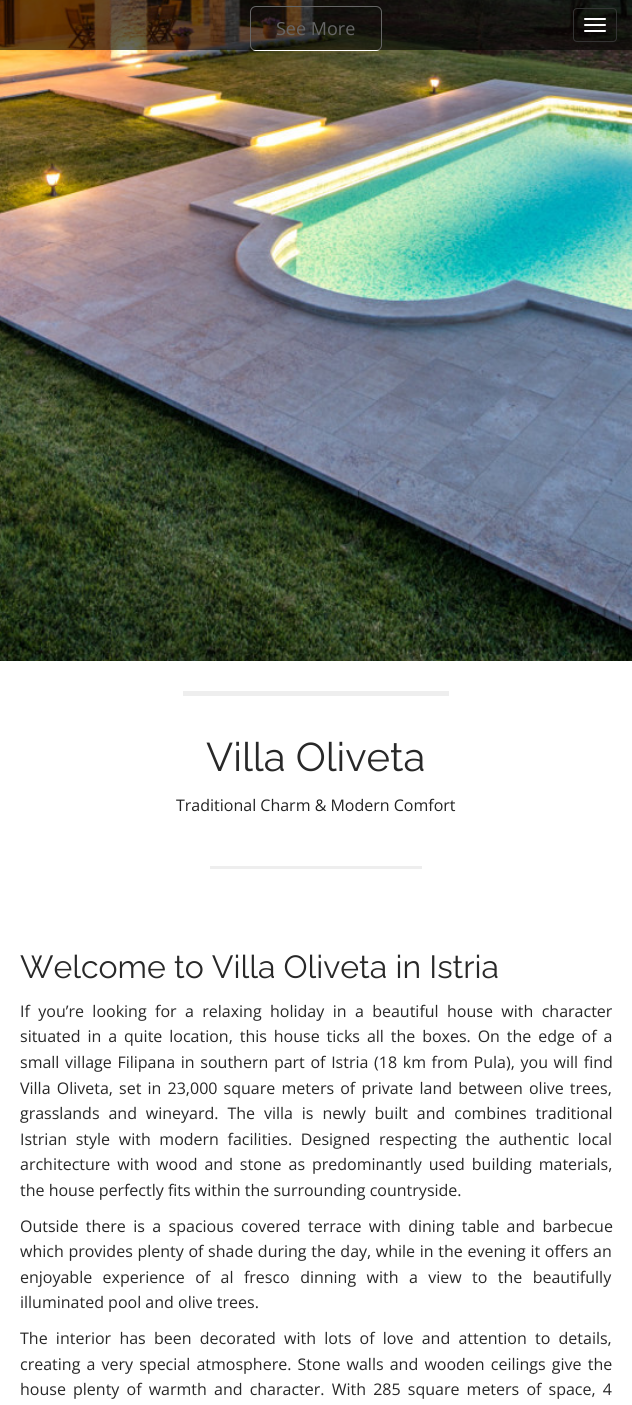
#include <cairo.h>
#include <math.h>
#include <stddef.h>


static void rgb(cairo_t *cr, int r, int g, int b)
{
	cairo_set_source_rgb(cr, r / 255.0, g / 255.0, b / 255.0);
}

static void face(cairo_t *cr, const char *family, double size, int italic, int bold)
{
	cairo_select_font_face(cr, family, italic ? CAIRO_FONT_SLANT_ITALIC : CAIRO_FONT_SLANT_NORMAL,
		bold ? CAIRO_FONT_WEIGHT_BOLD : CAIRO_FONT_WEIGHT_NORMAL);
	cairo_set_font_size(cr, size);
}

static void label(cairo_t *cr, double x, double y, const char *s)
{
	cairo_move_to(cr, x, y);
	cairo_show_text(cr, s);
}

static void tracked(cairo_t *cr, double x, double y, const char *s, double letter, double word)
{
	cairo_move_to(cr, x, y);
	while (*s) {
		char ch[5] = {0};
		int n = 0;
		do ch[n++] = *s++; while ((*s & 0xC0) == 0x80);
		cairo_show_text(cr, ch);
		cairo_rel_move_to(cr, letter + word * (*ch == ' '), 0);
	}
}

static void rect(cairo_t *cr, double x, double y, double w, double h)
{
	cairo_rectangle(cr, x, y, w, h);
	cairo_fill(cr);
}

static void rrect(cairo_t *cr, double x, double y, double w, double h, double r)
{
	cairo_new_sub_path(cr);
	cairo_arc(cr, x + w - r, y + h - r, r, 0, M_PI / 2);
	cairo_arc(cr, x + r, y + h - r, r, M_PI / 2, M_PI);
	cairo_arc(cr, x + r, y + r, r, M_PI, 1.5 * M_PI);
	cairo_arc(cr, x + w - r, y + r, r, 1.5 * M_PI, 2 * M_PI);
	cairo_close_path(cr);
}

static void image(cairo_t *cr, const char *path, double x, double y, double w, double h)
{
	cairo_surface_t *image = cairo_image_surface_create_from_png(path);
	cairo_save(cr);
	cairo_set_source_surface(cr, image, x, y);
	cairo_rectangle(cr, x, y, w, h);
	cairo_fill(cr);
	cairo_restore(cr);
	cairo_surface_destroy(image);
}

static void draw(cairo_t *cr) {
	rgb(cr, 255, 255, 255);
	cairo_paint(cr);
	image(cr, "image0.png", 0, 0, 632, 661);
	rrect(cr, 250.5, 6.5, 131, 44, 5.5);
	rgb(cr, 255, 255, 255);
	cairo_set_line_width(cr, 1);
	cairo_stroke(cr);
	face(cr, "Open Sans", 18, 0, 0);
	label(cr, 276, 35, "See More");
	cairo_set_source_rgba(cr, 0, 0, 0, 0.6);
	rect(cr, 0, 0, 632, 50);
	rrect(cr, 573.5, 8.5, 43, 33, 3.5);
	rgb(cr, 51, 51, 51);
	cairo_stroke(cr);
	rgb(cr, 255, 255, 255);
	rrect(cr, 584, 18, 22, 2, 1);
	cairo_fill(cr);
	rrect(cr, 584, 24, 22, 2, 1);
	cairo_fill(cr);
	rrect(cr, 584, 30, 22, 2, 1);
	cairo_fill(cr);
	rgb(cr, 238, 238, 238);
	rect(cr, 183, 691, 266, 5);
	face(cr, "Raleway Thin", 40, 0, 0);
	rgb(cr, 40, 40, 40);
	label(cr, 206, 771, "Villa Oliveta");
	face(cr, "Open Sans", 16, 0, 0);
	rgb(cr, 34, 34, 34);
	label(cr, 176, 811, "Traditional Charm & Modern Comfort");
	rgb(cr, 238, 238, 238);
	rect(cr, 210, 866, 212, 3);
	face(cr, "Raleway Thin", 32, 0, 0);
	rgb(cr, 40, 40, 40);
	label(cr, 20, 978, "Welcome to Villa Oliveta in Istria");
	face(cr, "Open Sans", 16, 0, 0);
	tracked(cr, 20, 1017, "If you’re looking for a relaxing holiday in a beautiful house with character", 0, 4.25);
	tracked(cr, 20, 1042, "situated in a quite location, this house ticks all the boxes. On the edge of a", 0, 2.75);
	tracked(cr, 20, 1068, "small village Filipana in southern part of Istria (18 km from Pula), you will find", 0, 1.5);
	tracked(cr, 20, 1094, "Villa Oliveta, set in 23,000 square meters of private land between olive trees,", 0, 2);
	tracked(cr, 20, 1119, "grasslands and wineyard. The villa is newly built and combines traditional", 0, 4.75);
	tracked(cr, 20, 1145, "Istrian style with modern facilities. Designed respecting the authentic local", 0, 4.5);
	tracked(cr, 20, 1170, "architecture with wood and stone as predominantly used building materials,", 0, 2.75);
	label(cr, 20, 1196, "the house perfectly fits within the surrounding countryside.");
	tracked(cr, 20, 1232, "Outside there is a spacious covered terrace with dining table and barbecue", 0, 3.25);
	tracked(cr, 20, 1257, "which provides plenty of shade during the day, while in the evening it offers an", 0, 0.5);
	tracked(cr, 20, 1283, "enjoyable experience of al fresco dinning with a view to the beautifully", 0, 6.25);
	label(cr, 20, 1308, "illuminated pool and olive trees.");
	tracked(cr, 20, 1344, "The interior has been decorated with lots of love and attention to details,", 0, 4.1);
	tracked(cr, 20, 1370, "creating a very special atmosphere. Stone walls and wooden ceilings give the", 0, 2);
	tracked(cr, 20, 1395, "house plenty of warmth and character. With 285 square meters of space, 4", 0, 3);
}

int main(void) {
	cairo_surface_t *surface = cairo_image_surface_create(CAIRO_FORMAT_RGB24, 632, 1405);
	cairo_t *cr = cairo_create(surface);
	cairo_font_options_t *options = cairo_font_options_create();
	cairo_font_options_set_hint_metrics(options, CAIRO_HINT_METRICS_OFF);
	cairo_font_options_set_hint_style(options, CAIRO_HINT_STYLE_NONE);
	cairo_set_font_options(cr, options);
	cairo_set_miter_limit(cr, 4);
	draw(cr);
	cairo_surface_write_to_png(surface, "render.png");
	cairo_font_options_destroy(options);
	cairo_destroy(cr);
	cairo_surface_destroy(surface);
	return 0;
}
